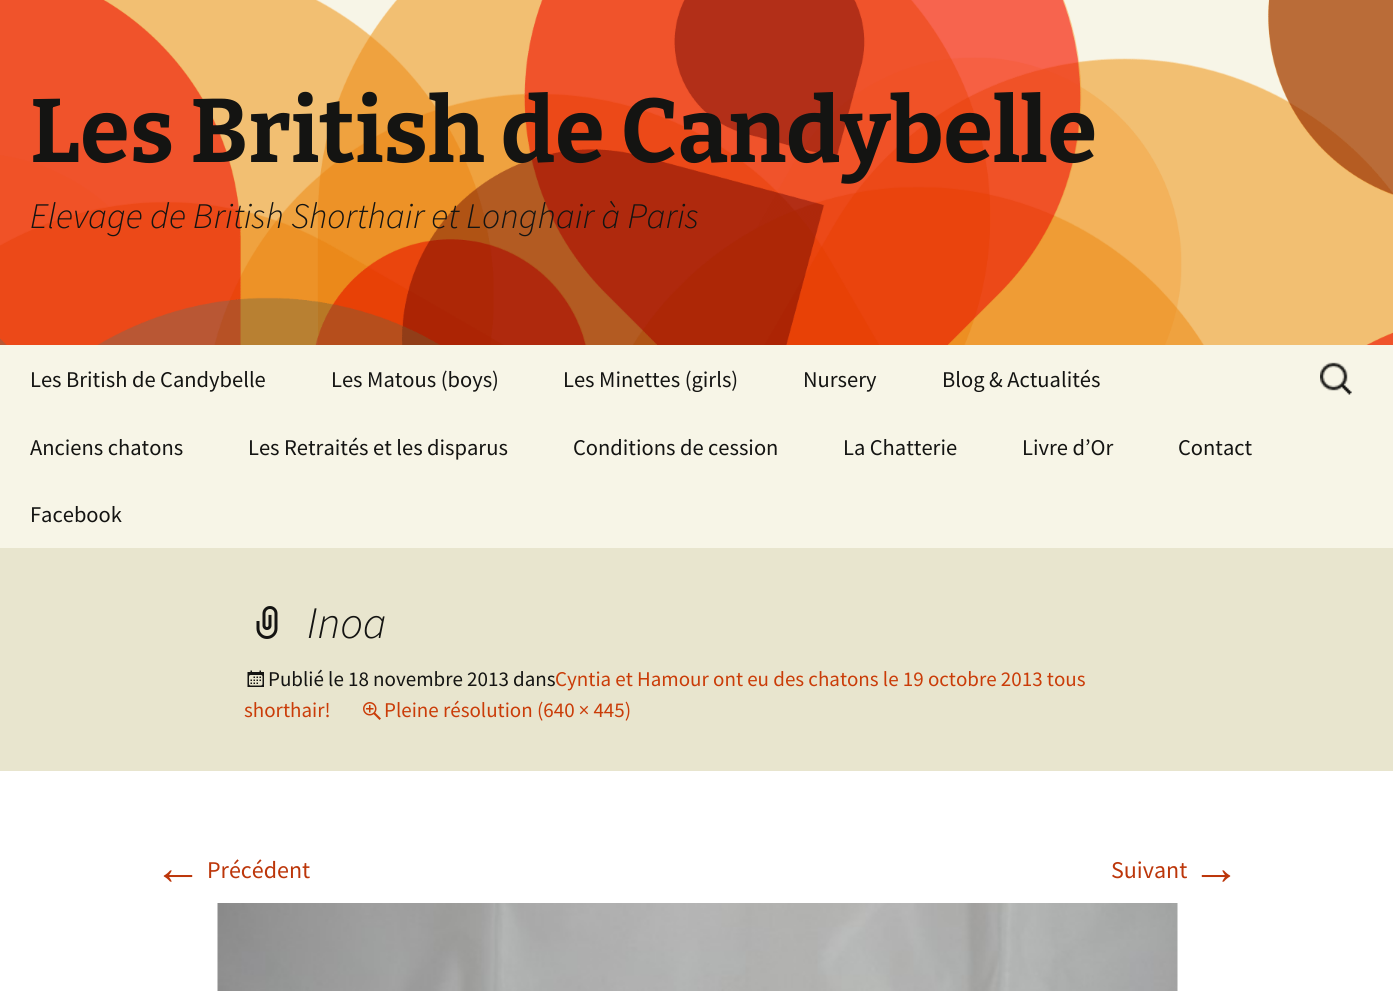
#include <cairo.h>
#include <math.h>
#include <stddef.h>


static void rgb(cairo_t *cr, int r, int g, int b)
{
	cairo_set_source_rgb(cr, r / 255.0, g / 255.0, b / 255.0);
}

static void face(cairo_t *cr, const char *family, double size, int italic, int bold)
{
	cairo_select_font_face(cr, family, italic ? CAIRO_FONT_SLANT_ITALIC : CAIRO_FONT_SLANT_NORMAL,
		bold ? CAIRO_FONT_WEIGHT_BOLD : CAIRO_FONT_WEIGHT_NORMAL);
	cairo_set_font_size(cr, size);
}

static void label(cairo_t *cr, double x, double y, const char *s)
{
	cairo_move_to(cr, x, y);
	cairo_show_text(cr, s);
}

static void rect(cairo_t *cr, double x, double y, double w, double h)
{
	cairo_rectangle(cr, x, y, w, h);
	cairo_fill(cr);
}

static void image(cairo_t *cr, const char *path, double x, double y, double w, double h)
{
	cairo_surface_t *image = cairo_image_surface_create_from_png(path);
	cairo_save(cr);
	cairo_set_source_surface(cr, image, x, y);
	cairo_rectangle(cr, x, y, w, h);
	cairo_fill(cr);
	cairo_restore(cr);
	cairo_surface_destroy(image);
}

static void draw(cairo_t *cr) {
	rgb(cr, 255, 255, 255);
	cairo_paint(cr);
	image(cr, "image0.png", 0, 0, 1393, 345);
	face(cr, "Bitter Thin", 90, 0, 0);
	rgb(cr, 20, 20, 18);
	label(cr, 30, 162, "Les British de Candybelle");
	face(cr, "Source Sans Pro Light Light", 36, 1, 0);
	label(cr, 30, 228, "Elevage de British Shorthair et Longhair à Paris");
	rgb(cr, 247, 245, 231);
	rect(cr, 0, 345, 1393, 203);
	face(cr, "Source Sans Pro", 22.5, 0, 0);
	rgb(cr, 20, 20, 18);
	label(cr, 30, 387, "Les British de Candybelle");
	label(cr, 331, 387, "Les Matous (boys)");
	label(cr, 563, 387, "Les Minettes (girls)");
	label(cr, 803, 387, "Nursery");
	label(cr, 942, 387, "Blog & Actualités");
	label(cr, 30, 455, "Anciens chatons");
	label(cr, 248, 455, "Les Retraités et les disparus");
	label(cr, 573, 455, "Conditions de cession");
	label(cr, 843, 455, "La Chatterie");
	label(cr, 1022, 455, "Livre d’Or");
	label(cr, 1178, 455, "Contact");
	label(cr, 30, 522, "Facebook");
	image(cr, "image1.png", 1320, 362, 32, 33);
	rgb(cr, 232, 229, 206);
	rect(cr, 0, 548, 1393, 223);
	image(cr, "image2.png", 256, 606, 22, 33);
	face(cr, "Source Sans Pro Light Light", 45, 1, 0);
	rgb(cr, 20, 20, 18);
	label(cr, 307, 638, "Inoa");
	image(cr, "image3.png", 247, 670, 17, 17);
	face(cr, "Source Sans Pro", 21, 0, 0);
	label(cr, 268, 686, "Publié le 18 novembre 2013 dans");
	rgb(cr, 202, 60, 8);
	label(cr, 555, 686, "Cyntia et Hamour ont eu des chatons le 19 octobre 2013 tous");
	label(cr, 244, 717, "shorthair!");
	image(cr, "image4.png", 363, 702, 18, 18);
	label(cr, 384, 717, "Pleine résolution (640 × 445)");
	face(cr, "Liberation Sans", 48, 0, 0);
	rgb(cr, 188, 54, 10);
	label(cr, 154, 884, "←");
	face(cr, "Source Sans Pro", 24, 0, 0);
	label(cr, 207, 878, "Précédent");
	label(cr, 1111, 878, "Suivant");
	face(cr, "Liberation Sans", 48, 0, 0);
	label(cr, 1192, 884, "→");
	image(cr, "image5.png", 217, 903, 961, 88);
}

int main(void) {
	cairo_surface_t *surface = cairo_image_surface_create(CAIRO_FORMAT_RGB24, 1393, 991);
	cairo_t *cr = cairo_create(surface);
	cairo_font_options_t *options = cairo_font_options_create();
	cairo_font_options_set_hint_metrics(options, CAIRO_HINT_METRICS_OFF);
	cairo_font_options_set_hint_style(options, CAIRO_HINT_STYLE_NONE);
	cairo_set_font_options(cr, options);
	cairo_set_miter_limit(cr, 4);
	draw(cr);
	cairo_surface_write_to_png(surface, "render.png");
	cairo_font_options_destroy(options);
	cairo_destroy(cr);
	cairo_surface_destroy(surface);
	return 0;
}
